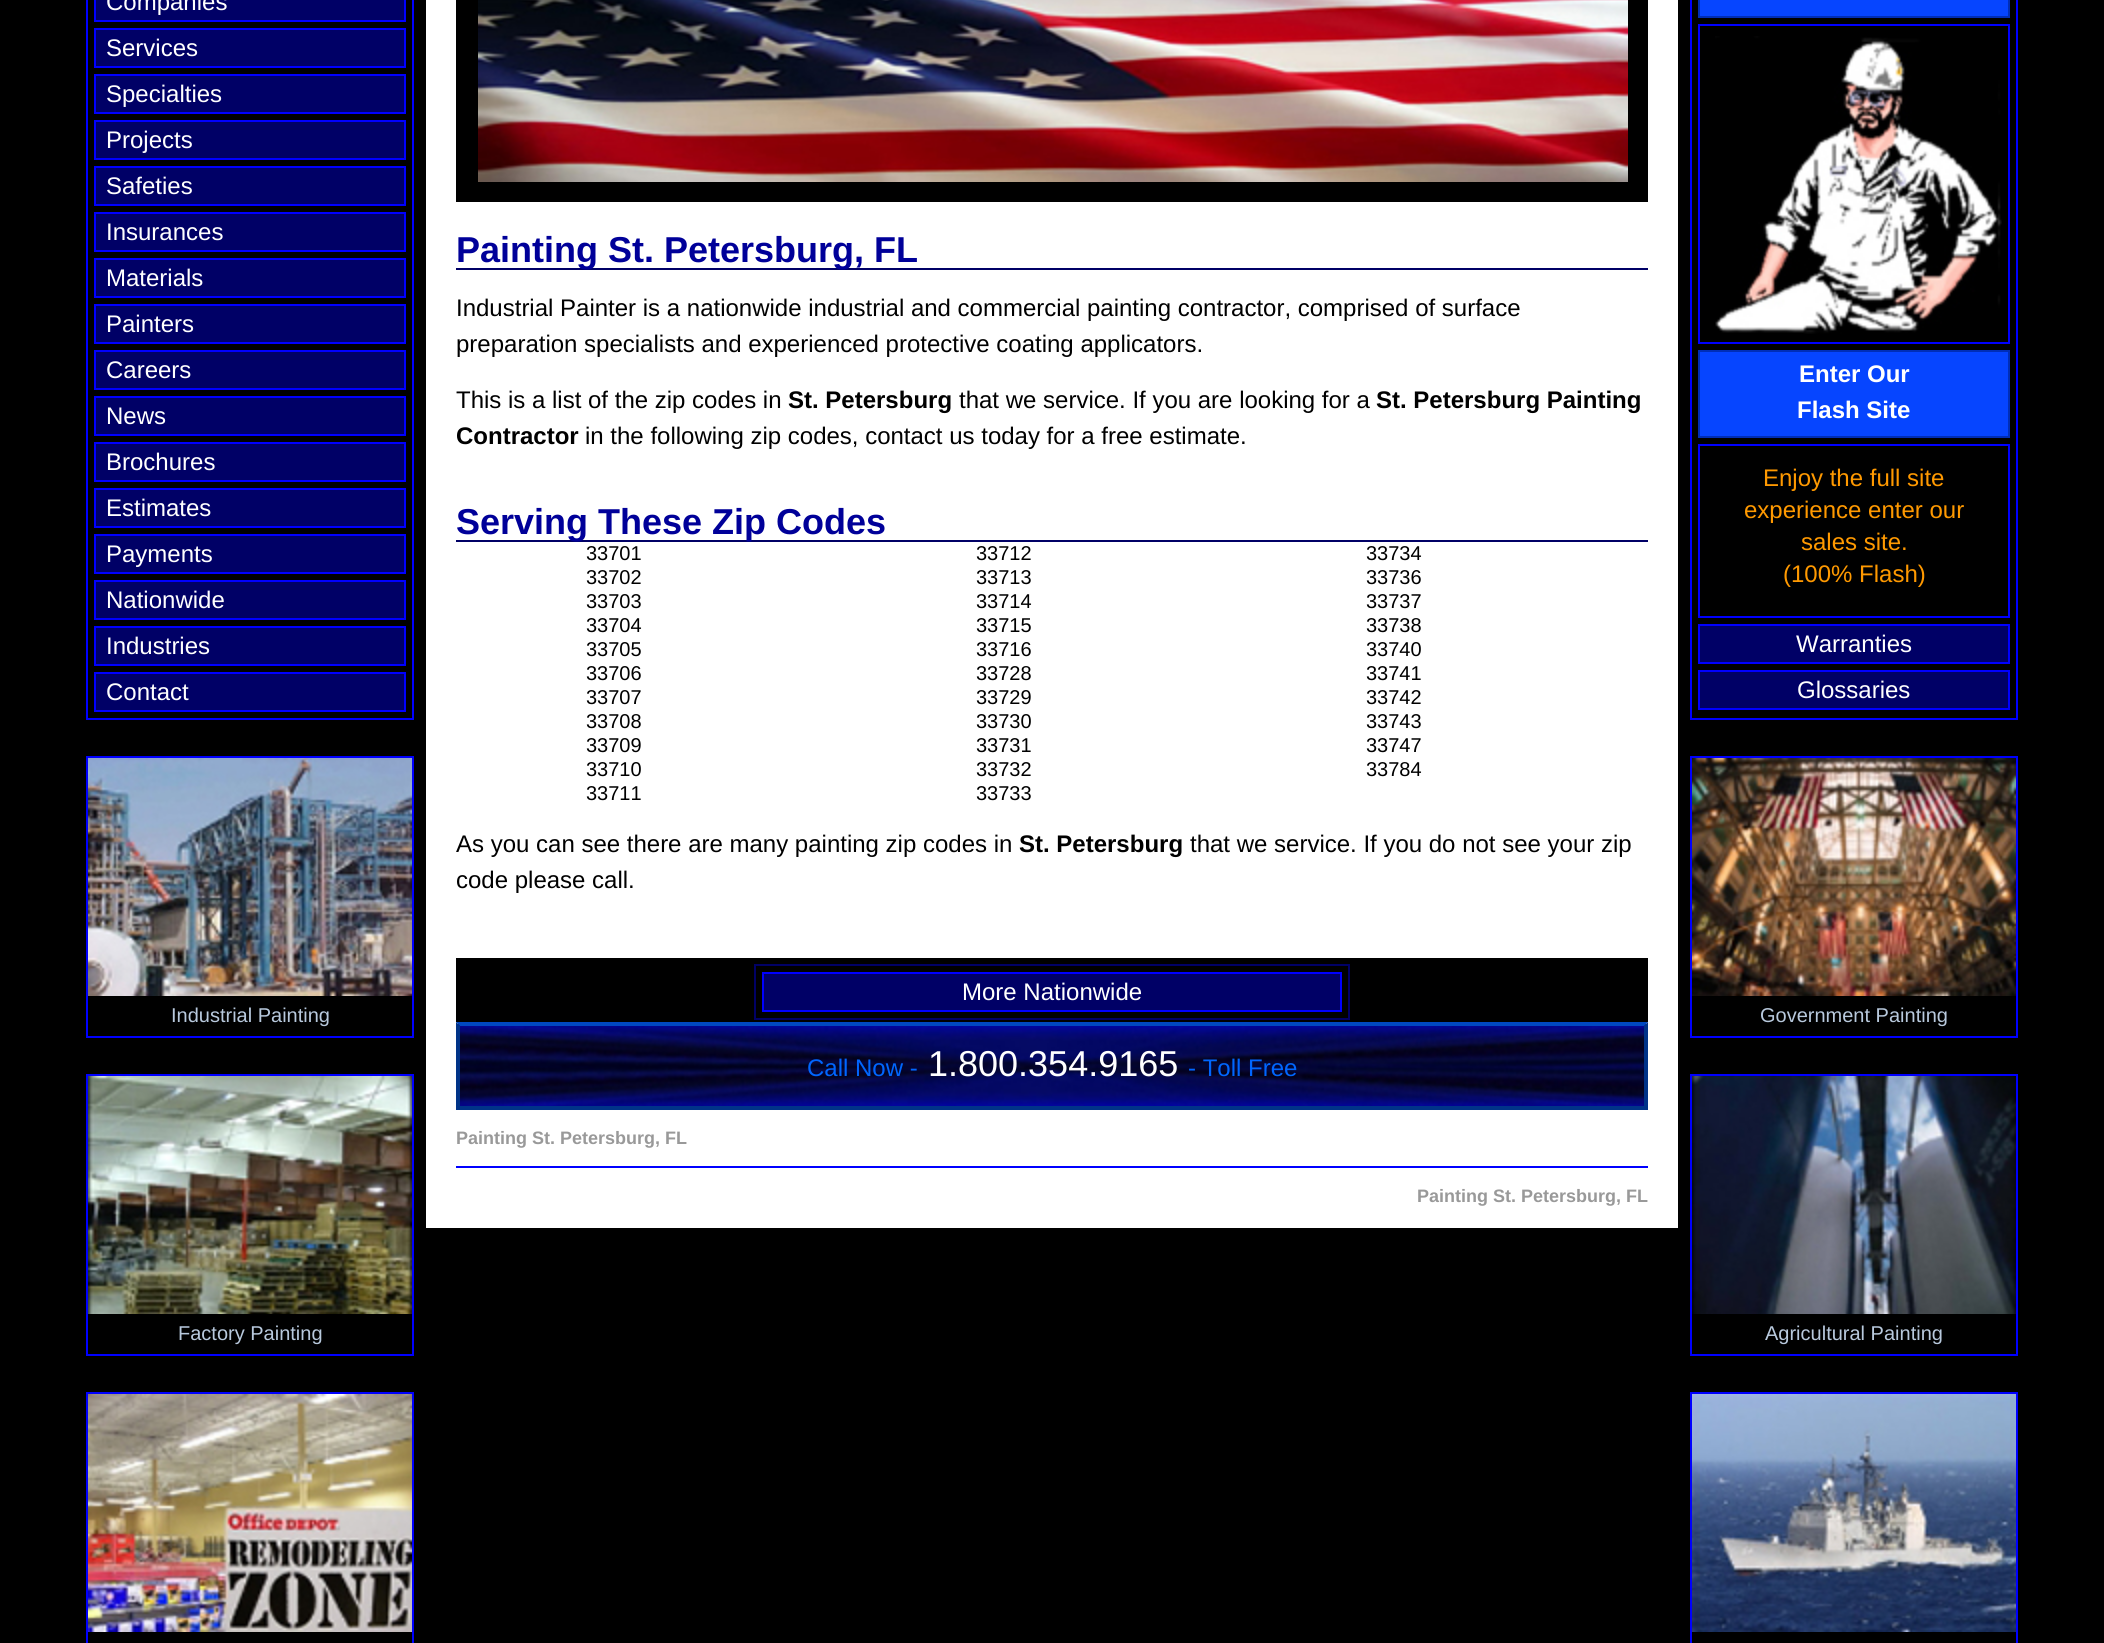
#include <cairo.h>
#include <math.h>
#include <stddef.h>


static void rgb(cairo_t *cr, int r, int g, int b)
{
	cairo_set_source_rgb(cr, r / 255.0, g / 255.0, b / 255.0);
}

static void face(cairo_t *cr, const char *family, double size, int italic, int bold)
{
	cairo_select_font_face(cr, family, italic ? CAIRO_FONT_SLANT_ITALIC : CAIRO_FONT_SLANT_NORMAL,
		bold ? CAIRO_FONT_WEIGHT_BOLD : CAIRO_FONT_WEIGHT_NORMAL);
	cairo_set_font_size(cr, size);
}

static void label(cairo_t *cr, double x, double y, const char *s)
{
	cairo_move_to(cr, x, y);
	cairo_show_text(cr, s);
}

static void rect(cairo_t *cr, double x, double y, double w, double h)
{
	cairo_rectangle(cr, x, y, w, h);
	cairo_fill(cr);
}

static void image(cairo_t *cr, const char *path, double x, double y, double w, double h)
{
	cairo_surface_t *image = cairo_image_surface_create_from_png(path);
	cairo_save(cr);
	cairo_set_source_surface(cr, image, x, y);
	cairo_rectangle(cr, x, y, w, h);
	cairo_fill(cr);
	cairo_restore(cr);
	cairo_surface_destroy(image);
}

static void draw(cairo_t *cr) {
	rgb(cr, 0, 0, 0);
	cairo_paint(cr);
	cairo_rectangle(cr, 87, -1, 326, 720);
	rgb(cr, 0, 0, 255);
	cairo_stroke(cr);
	rgb(cr, 0, 0, 102);
	cairo_rectangle(cr, 95, -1, 310, 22);
	cairo_fill_preserve(cr);
	rgb(cr, 0, 0, 255);
	cairo_stroke(cr);
	face(cr, "Liberation Sans", 24, 0, 0);
	rgb(cr, 255, 255, 255);
	label(cr, 106, 10, "Companies");
	rgb(cr, 0, 0, 102);
	cairo_rectangle(cr, 95, 29, 310, 38);
	cairo_fill_preserve(cr);
	rgb(cr, 0, 0, 255);
	cairo_stroke(cr);
	rgb(cr, 255, 255, 255);
	label(cr, 106, 56, "Services");
	rgb(cr, 0, 0, 102);
	cairo_rectangle(cr, 95, 75, 310, 38);
	cairo_fill_preserve(cr);
	rgb(cr, 0, 0, 255);
	cairo_stroke(cr);
	rgb(cr, 255, 255, 255);
	label(cr, 106, 102, "Specialties");
	rgb(cr, 0, 0, 102);
	cairo_rectangle(cr, 95, 121, 310, 38);
	cairo_fill_preserve(cr);
	rgb(cr, 0, 0, 255);
	cairo_stroke(cr);
	rgb(cr, 255, 255, 255);
	label(cr, 106, 148, "Projects");
	rgb(cr, 0, 0, 102);
	cairo_rectangle(cr, 95, 167, 310, 38);
	cairo_fill_preserve(cr);
	rgb(cr, 0, 0, 255);
	cairo_stroke(cr);
	rgb(cr, 255, 255, 255);
	label(cr, 106, 194, "Safeties");
	rgb(cr, 0, 0, 102);
	cairo_rectangle(cr, 95, 213, 310, 38);
	cairo_fill_preserve(cr);
	rgb(cr, 0, 0, 255);
	cairo_stroke(cr);
	rgb(cr, 255, 255, 255);
	label(cr, 106, 240, "Insurances");
	rgb(cr, 0, 0, 102);
	cairo_rectangle(cr, 95, 259, 310, 38);
	cairo_fill_preserve(cr);
	rgb(cr, 0, 0, 255);
	cairo_stroke(cr);
	rgb(cr, 255, 255, 255);
	label(cr, 106, 286, "Materials");
	rgb(cr, 0, 0, 102);
	cairo_rectangle(cr, 95, 305, 310, 38);
	cairo_fill_preserve(cr);
	rgb(cr, 0, 0, 255);
	cairo_stroke(cr);
	rgb(cr, 255, 255, 255);
	label(cr, 106, 332, "Painters");
	rgb(cr, 0, 0, 102);
	cairo_rectangle(cr, 95, 351, 310, 38);
	cairo_fill_preserve(cr);
	rgb(cr, 0, 0, 255);
	cairo_stroke(cr);
	rgb(cr, 255, 255, 255);
	label(cr, 106, 378, "Careers");
	rgb(cr, 0, 0, 102);
	cairo_rectangle(cr, 95, 397, 310, 38);
	cairo_fill_preserve(cr);
	rgb(cr, 0, 0, 255);
	cairo_stroke(cr);
	rgb(cr, 255, 255, 255);
	label(cr, 106, 424, "News");
	rgb(cr, 0, 0, 102);
	cairo_rectangle(cr, 95, 443, 310, 38);
	cairo_fill_preserve(cr);
	rgb(cr, 0, 0, 255);
	cairo_stroke(cr);
	rgb(cr, 255, 255, 255);
	label(cr, 106, 470, "Brochures");
	rgb(cr, 0, 0, 102);
	cairo_rectangle(cr, 95, 489, 310, 38);
	cairo_fill_preserve(cr);
	rgb(cr, 0, 0, 255);
	cairo_stroke(cr);
	rgb(cr, 255, 255, 255);
	label(cr, 106, 516, "Estimates");
	rgb(cr, 0, 0, 102);
	cairo_rectangle(cr, 95, 535, 310, 38);
	cairo_fill_preserve(cr);
	rgb(cr, 0, 0, 255);
	cairo_stroke(cr);
	rgb(cr, 255, 255, 255);
	label(cr, 106, 562, "Payments");
	rgb(cr, 0, 0, 102);
	cairo_rectangle(cr, 95, 581, 310, 38);
	cairo_fill_preserve(cr);
	rgb(cr, 0, 0, 255);
	cairo_stroke(cr);
	rgb(cr, 255, 255, 255);
	label(cr, 106, 608, "Nationwide");
	rgb(cr, 0, 0, 102);
	cairo_rectangle(cr, 95, 627, 310, 38);
	cairo_fill_preserve(cr);
	rgb(cr, 0, 0, 255);
	cairo_stroke(cr);
	rgb(cr, 255, 255, 255);
	label(cr, 106, 654, "Industries");
	rgb(cr, 0, 0, 102);
	cairo_rectangle(cr, 95, 673, 310, 38);
	cairo_fill_preserve(cr);
	rgb(cr, 0, 0, 255);
	cairo_stroke(cr);
	rgb(cr, 255, 255, 255);
	label(cr, 106, 700, "Contact");
	cairo_rectangle(cr, 87, 757, 326, 280);
	rgb(cr, 0, 0, 255);
	cairo_stroke(cr);
	image(cr, "image0.png", 88, 758, 324, 238);
	face(cr, "Liberation Sans", 20, 0, 0);
	rgb(cr, 184, 201, 221);
	label(cr, 171, 1022, "Industrial Painting");
	cairo_rectangle(cr, 87, 1075, 326, 280);
	rgb(cr, 0, 0, 255);
	cairo_stroke(cr);
	image(cr, "image1.png", 88, 1076, 324, 238);
	rgb(cr, 184, 201, 221);
	label(cr, 178, 1340, "Factory Painting");
	cairo_rectangle(cr, 87, 1393, 326, 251);
	rgb(cr, 0, 0, 255);
	cairo_stroke(cr);
	image(cr, "image2.png", 88, 1394, 324, 238);
	rgb(cr, 255, 255, 255);
	rect(cr, 426, 0, 1252, 1228);
	rgb(cr, 0, 0, 0);
	rect(cr, 456, 0, 1192, 202);
	image(cr, "image3.png", 478, 0, 1150, 182);
	rgb(cr, 0, 0, 102);
	rect(cr, 456, 268, 1192, 2);
	face(cr, "Liberation Sans", 36, 0, 1);
	rgb(cr, 0, 0, 153);
	label(cr, 456, 262, "Painting St. Petersburg, FL");
	face(cr, "Liberation Sans", 24, 0, 0);
	rgb(cr, 0, 0, 0);
	label(cr, 456, 316, "Industrial Painter is a nationwide industrial and commercial painting contractor, comprised of surface");
	label(cr, 456, 352, "preparation specialists and experienced protective coating applicators.");
	label(cr, 456, 408, "This is a list of the zip codes in");
	face(cr, "Liberation Sans", 24, 0, 1);
	label(cr, 788, 408, "St. Petersburg");
	face(cr, "Liberation Sans", 24, 0, 0);
	label(cr, 959, 408, "that we service. If you are looking for a");
	face(cr, "Liberation Sans", 24, 0, 1);
	label(cr, 1376, 408, "St. Petersburg Painting");
	label(cr, 456, 444, "Contractor");
	face(cr, "Liberation Sans", 24, 0, 0);
	label(cr, 585, 444, "in the following zip codes, contact us today for a free estimate.");
	rgb(cr, 0, 0, 102);
	rect(cr, 456, 540, 1192, 2);
	face(cr, "Liberation Sans", 36, 0, 1);
	rgb(cr, 0, 0, 153);
	label(cr, 456, 534, "Serving These Zip Codes");
	face(cr, "Liberation Sans", 20, 0, 0);
	rgb(cr, 0, 0, 0);
	label(cr, 586, 560, "33701");
	label(cr, 586, 584, "33702");
	label(cr, 586, 608, "33703");
	label(cr, 586, 632, "33704");
	label(cr, 586, 656, "33705");
	label(cr, 586, 680, "33706");
	label(cr, 586, 704, "33707");
	label(cr, 586, 728, "33708");
	label(cr, 586, 752, "33709");
	label(cr, 586, 776, "33710");
	label(cr, 586, 800, "33711");
	label(cr, 976, 560, "33712");
	label(cr, 976, 584, "33713");
	label(cr, 976, 608, "33714");
	label(cr, 976, 632, "33715");
	label(cr, 976, 656, "33716");
	label(cr, 976, 680, "33728");
	label(cr, 976, 704, "33729");
	label(cr, 976, 728, "33730");
	label(cr, 976, 752, "33731");
	label(cr, 976, 776, "33732");
	label(cr, 976, 800, "33733");
	label(cr, 1366, 560, "33734");
	label(cr, 1366, 584, "33736");
	label(cr, 1366, 608, "33737");
	label(cr, 1366, 632, "33738");
	label(cr, 1366, 656, "33740");
	label(cr, 1366, 680, "33741");
	label(cr, 1366, 704, "33742");
	label(cr, 1366, 728, "33743");
	label(cr, 1366, 752, "33747");
	label(cr, 1366, 776, "33784");
	face(cr, "Liberation Sans", 24, 0, 0);
	label(cr, 456, 852, "As you can see there are many painting zip codes in");
	face(cr, "Liberation Sans", 24, 0, 1);
	label(cr, 1019, 852, "St. Petersburg");
	face(cr, "Liberation Sans", 24, 0, 0);
	label(cr, 1190, 852, "that we service. If you do not see your zip");
	label(cr, 456, 888, "code please call.");
	rect(cr, 456, 958, 1192, 64);
	cairo_rectangle(cr, 755, 965, 594, 54);
	rgb(cr, 0, 0, 102);
	cairo_stroke(cr);
	cairo_rectangle(cr, 763, 973, 578, 38);
	rgb(cr, 0, 0, 255);
	cairo_stroke(cr);
	rgb(cr, 0, 0, 102);
	rect(cr, 764, 974, 576, 36);
	rgb(cr, 255, 255, 255);
	label(cr, 962, 1000, "More Nationwide");
	image(cr, "image4.png", 458, 1024, 1188, 82);
	rgb(cr, 0, 72, 193);
	cairo_new_path(cr);
	cairo_move_to(cr, 456, 1022);
	cairo_line_to(cr, 1648, 1022);
	cairo_line_to(cr, 1644, 1026);
	cairo_line_to(cr, 460, 1026);
	cairo_close_path(cr);
	cairo_fill(cr);
	rgb(cr, 0, 51, 136);
	cairo_new_path(cr);
	cairo_move_to(cr, 1648, 1022);
	cairo_line_to(cr, 1648, 1110);
	cairo_line_to(cr, 1644, 1106);
	cairo_line_to(cr, 1644, 1026);
	cairo_close_path(cr);
	cairo_fill(cr);
	rect(cr, 456, 1106, 1192, 4);
	cairo_new_path(cr);
	cairo_move_to(cr, 456, 1110);
	cairo_line_to(cr, 456, 1022);
	cairo_line_to(cr, 460, 1026);
	cairo_line_to(cr, 460, 1106);
	cairo_close_path(cr);
	cairo_fill(cr);
	rgb(cr, 0, 102, 255);
	label(cr, 807, 1076, "Call Now -");
	face(cr, "Liberation Sans", 36, 0, 0);
	rgb(cr, 255, 255, 255);
	label(cr, 928, 1076, "1.800.354.9165");
	face(cr, "Liberation Sans", 24, 0, 0);
	rgb(cr, 0, 102, 255);
	label(cr, 1188, 1076, "- Toll Free");
	face(cr, "Liberation Sans", 18, 0, 1);
	rgb(cr, 153, 153, 153);
	label(cr, 456, 1144, "Painting St. Petersburg, FL");
	rgb(cr, 0, 0, 255);
	rect(cr, 456, 1166, 1192, 2);
	rgb(cr, 153, 153, 153);
	label(cr, 1417, 1202, "Painting St. Petersburg, FL");
	cairo_rectangle(cr, 1691, -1, 326, 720);
	rgb(cr, 0, 0, 255);
	cairo_stroke(cr);
	rgb(cr, 6, 69, 255);
	cairo_rectangle(cr, 1699, -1, 310, 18);
	cairo_fill_preserve(cr);
	rgb(cr, 0, 46, 183);
	cairo_stroke(cr);
	cairo_rectangle(cr, 1699, 25, 310, 318);
	rgb(cr, 0, 0, 255);
	cairo_stroke(cr);
	image(cr, "image5.png", 1715, 36, 287, 298);
	rgb(cr, 6, 69, 255);
	cairo_rectangle(cr, 1699, 351, 310, 86);
	cairo_fill_preserve(cr);
	rgb(cr, 0, 46, 183);
	cairo_stroke(cr);
	face(cr, "Liberation Sans", 24, 0, 1);
	rgb(cr, 255, 255, 255);
	label(cr, 1799, 382, "Enter Our");
	label(cr, 1797, 418, "Flash Site");
	cairo_rectangle(cr, 1699, 445, 310, 172);
	rgb(cr, 0, 0, 255);
	cairo_stroke(cr);
	face(cr, "Liberation Sans", 24, 0, 0);
	rgb(cr, 255, 153, 0);
	label(cr, 1763, 486, "Enjoy the full site");
	label(cr, 1744, 518, "experience enter our");
	label(cr, 1801, 550, "sales site.");
	label(cr, 1783, 582, "(100% Flash)");
	rgb(cr, 0, 0, 102);
	cairo_rectangle(cr, 1699, 625, 310, 38);
	cairo_fill_preserve(cr);
	rgb(cr, 0, 0, 255);
	cairo_stroke(cr);
	rgb(cr, 255, 255, 255);
	label(cr, 1796, 652, "Warranties");
	rgb(cr, 0, 0, 102);
	cairo_rectangle(cr, 1699, 671, 310, 38);
	cairo_fill_preserve(cr);
	rgb(cr, 0, 0, 255);
	cairo_stroke(cr);
	rgb(cr, 255, 255, 255);
	label(cr, 1797, 698, "Glossaries");
	cairo_rectangle(cr, 1691, 757, 326, 280);
	rgb(cr, 0, 0, 255);
	cairo_stroke(cr);
	image(cr, "image6.png", 1692, 758, 324, 238);
	face(cr, "Liberation Sans", 20, 0, 0);
	rgb(cr, 184, 201, 221);
	label(cr, 1760, 1022, "Government Painting");
	cairo_rectangle(cr, 1691, 1075, 326, 280);
	rgb(cr, 0, 0, 255);
	cairo_stroke(cr);
	image(cr, "image7.png", 1692, 1076, 324, 238);
	rgb(cr, 184, 201, 221);
	label(cr, 1765, 1340, "Agricultural Painting");
	cairo_rectangle(cr, 1691, 1393, 326, 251);
	rgb(cr, 0, 0, 255);
	cairo_stroke(cr);
	image(cr, "image8.png", 1692, 1394, 324, 238);
}

int main(void) {
	cairo_surface_t *surface = cairo_image_surface_create(CAIRO_FORMAT_RGB24, 2104, 1643);
	cairo_t *cr = cairo_create(surface);
	cairo_font_options_t *options = cairo_font_options_create();
	cairo_font_options_set_hint_metrics(options, CAIRO_HINT_METRICS_OFF);
	cairo_font_options_set_hint_style(options, CAIRO_HINT_STYLE_NONE);
	cairo_set_font_options(cr, options);
	cairo_set_miter_limit(cr, 4);
	draw(cr);
	cairo_surface_write_to_png(surface, "render.png");
	cairo_font_options_destroy(options);
	cairo_destroy(cr);
	cairo_surface_destroy(surface);
	return 0;
}
